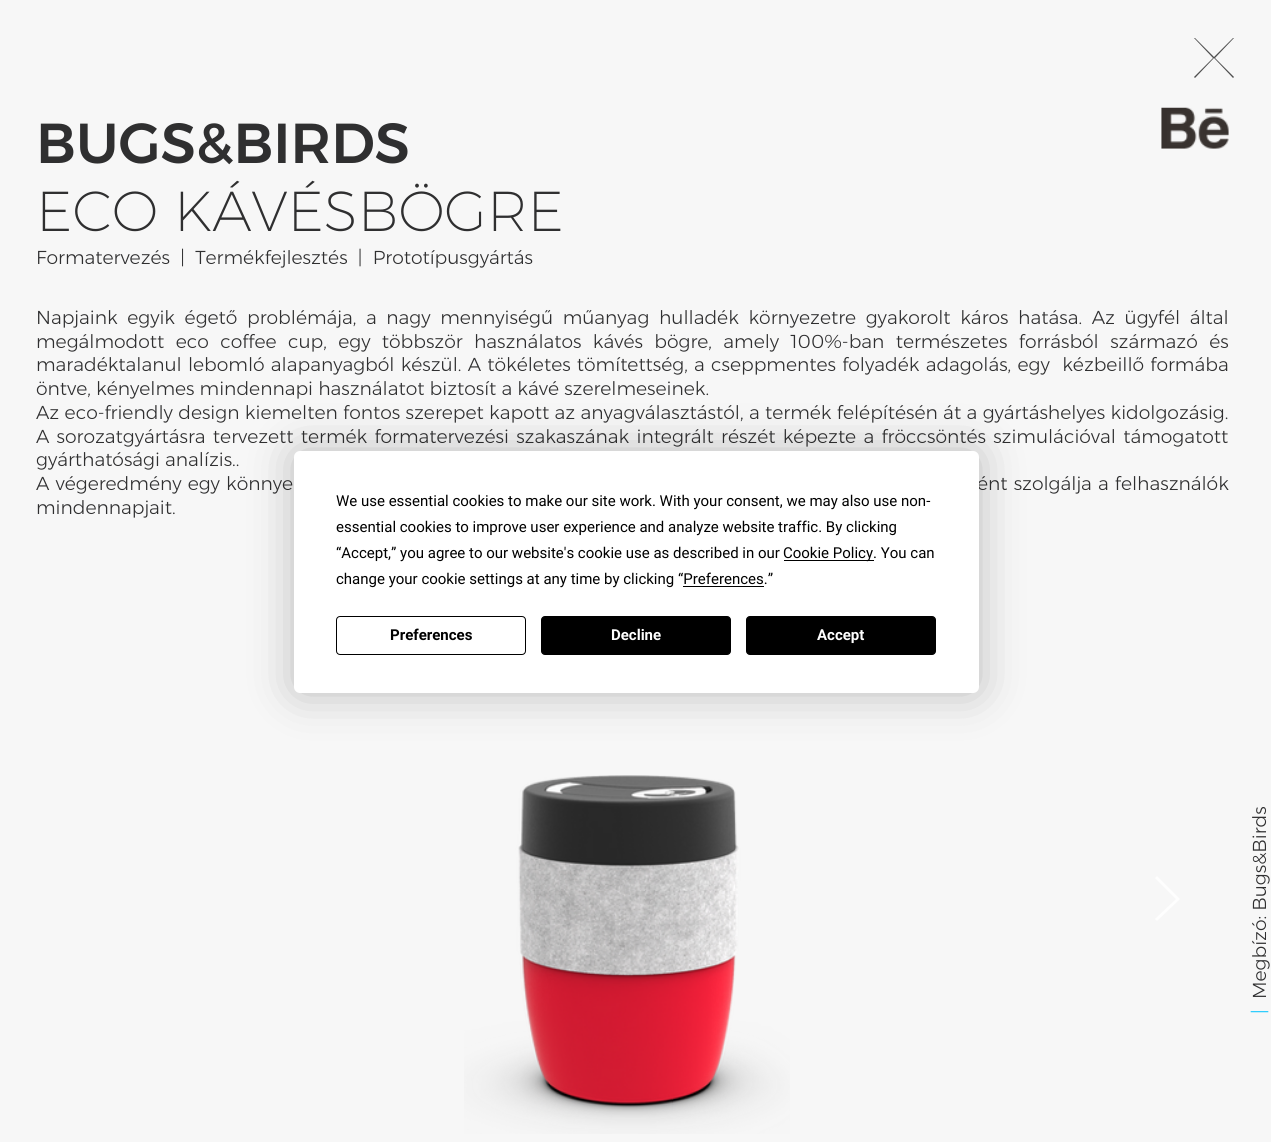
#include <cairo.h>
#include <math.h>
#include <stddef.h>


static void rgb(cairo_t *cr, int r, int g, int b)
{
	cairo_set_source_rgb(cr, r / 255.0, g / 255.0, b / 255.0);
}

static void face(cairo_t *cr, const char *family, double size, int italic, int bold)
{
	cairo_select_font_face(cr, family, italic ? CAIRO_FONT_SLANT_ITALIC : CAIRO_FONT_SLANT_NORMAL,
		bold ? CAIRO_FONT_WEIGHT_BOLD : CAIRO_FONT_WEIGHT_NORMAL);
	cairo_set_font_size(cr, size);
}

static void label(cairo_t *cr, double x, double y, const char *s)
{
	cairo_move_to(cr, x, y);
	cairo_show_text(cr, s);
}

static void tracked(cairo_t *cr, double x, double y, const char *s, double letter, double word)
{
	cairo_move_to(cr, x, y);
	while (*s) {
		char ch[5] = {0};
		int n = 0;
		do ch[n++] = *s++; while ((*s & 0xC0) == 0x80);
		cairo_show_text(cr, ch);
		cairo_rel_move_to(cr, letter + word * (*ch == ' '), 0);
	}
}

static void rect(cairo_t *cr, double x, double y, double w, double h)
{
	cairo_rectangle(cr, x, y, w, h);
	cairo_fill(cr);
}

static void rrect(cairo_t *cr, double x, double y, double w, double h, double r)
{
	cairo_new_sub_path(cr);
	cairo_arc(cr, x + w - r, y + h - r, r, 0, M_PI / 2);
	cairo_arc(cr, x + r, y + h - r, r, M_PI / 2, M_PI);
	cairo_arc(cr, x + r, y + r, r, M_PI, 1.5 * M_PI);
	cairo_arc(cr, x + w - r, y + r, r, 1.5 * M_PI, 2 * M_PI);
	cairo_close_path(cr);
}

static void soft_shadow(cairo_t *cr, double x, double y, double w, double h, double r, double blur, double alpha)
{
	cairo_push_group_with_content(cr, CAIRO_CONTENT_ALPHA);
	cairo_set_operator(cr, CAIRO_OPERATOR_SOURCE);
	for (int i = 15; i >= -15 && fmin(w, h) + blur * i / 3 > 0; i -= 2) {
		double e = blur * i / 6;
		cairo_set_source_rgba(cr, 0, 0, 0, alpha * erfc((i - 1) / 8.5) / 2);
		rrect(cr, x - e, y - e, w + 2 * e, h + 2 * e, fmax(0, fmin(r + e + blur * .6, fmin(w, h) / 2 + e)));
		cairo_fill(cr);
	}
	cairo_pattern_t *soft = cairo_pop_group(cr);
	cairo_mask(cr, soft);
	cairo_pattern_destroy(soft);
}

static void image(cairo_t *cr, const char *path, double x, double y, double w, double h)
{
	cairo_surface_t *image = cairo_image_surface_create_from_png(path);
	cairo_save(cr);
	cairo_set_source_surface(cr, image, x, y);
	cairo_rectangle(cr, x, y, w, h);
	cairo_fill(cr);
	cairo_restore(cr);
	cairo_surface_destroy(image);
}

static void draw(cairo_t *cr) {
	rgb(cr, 247, 247, 247);
	cairo_paint(cr);
	rgb(cr, 79, 79, 79);
	cairo_new_path(cr);
	cairo_move_to(cr, 1234, 77);
	cairo_line_to(cr, 1215, 58);
	cairo_line_to(cr, 1234, 38);
	cairo_line_to(cr, 1233, 38);
	cairo_line_to(cr, 1214, 57);
	cairo_line_to(cr, 1195, 38);
	cairo_line_to(cr, 1194, 38);
	cairo_line_to(cr, 1213, 58);
	cairo_line_to(cr, 1194, 77);
	cairo_line_to(cr, 1195, 78);
	cairo_line_to(cr, 1214, 58);
	cairo_line_to(cr, 1233, 78);
	cairo_close_path(cr);
	cairo_fill(cr);
	face(cr, "Montserrat Medium", 56.25, 0, 0);
	rgb(cr, 47, 47, 48);
	label(cr, 36, 163, "BUGS&BIRDS");
	face(cr, "Montserrat ExtraLight", 56.25, 0, 0);
	label(cr, 36, 231, "ECO KÁVÉSBÖGRE");
	face(cr, "Montserrat Light", 18.75, 0, 0);
	label(cr, 36, 264, "Formatervezés  |  Termékfejlesztés  |  Prototípusgyártás");
	image(cr, "image0.png", 1161, 107, 68, 42);
	tracked(cr, 36, 324, "Napjaink egyik égető problémája, a nagy mennyiségű műanyag hulladék környezetre gyakorolt káros hatása. Az ügyfél által", 0, 4.5);
	tracked(cr, 36, 348, "megálmodott eco coffee cup, egy többször használatos kávés bögre, amely 100%-ban természetes forrásból származó és", 0, 6.25);
	tracked(cr, 36, 371, "maradéktalanul lebomló alapanyagból készül. A tökéletes tömítettség, a cseppmentes folyadék adagolás, egy  kézbeillő formába", 0, 1.1);
	label(cr, 36, 395, "öntve, kényelmes mindennapi használatot biztosít a kávé szerelmeseinek.");
	tracked(cr, 36, 419, "Az eco-friendly design kiemelten fontos szerepet kapott az anyagválasztástól, a termék felépítésén át a gyártáshelyes kidolgozásig.", 0, 0.25);
	tracked(cr, 36, 443, "A sorozatgyártásra tervezett termék formatervezési szakaszának integrált részét képezte a fröccsöntés szimulációval támogatott", 0, 2.1);
	label(cr, 36, 466, "gyárthatósági analízis..");
	tracked(cr, 36, 490, "A végeredmény egy könnye", 0, 1);
	tracked(cr, 977, 490, "ént szolgálja a felhasználók", 0, 1);
	label(cr, 36, 514, "mindennapjait.");
	image(cr, "image1.png", 464, 775, 326, 359);
	rgb(cr, 254, 254, 254);
	cairo_new_path(cr);
	cairo_move_to(cr, 1155, 878);
	cairo_line_to(cr, 1157, 876);
	cairo_line_to(cr, 1180, 899);
	cairo_line_to(cr, 1157, 921);
	cairo_line_to(cr, 1155, 919);
	cairo_line_to(cr, 1176, 899);
	cairo_close_path(cr);
	cairo_fill(cr);
	rgb(cr, 47, 47, 48);
	cairo_save(cr);
	cairo_translate(cr, 1266, 999);
	cairo_rotate(cr, -90 * M_PI / 180);
	label(cr, 0, 0, "Megbízó: Bugs&Birds");
	cairo_restore(cr);
	rgb(cr, 0, 195, 255);
	cairo_save(cr);
	cairo_translate(cr, 1266, 1014);
	cairo_rotate(cr, -90 * M_PI / 180);
	label(cr, 0, 0, "|");
	cairo_restore(cr);
	rgb(cr, 0, 0, 0);
	soft_shadow(cr, 294, 451, 685, 242, 6, 22, 0.25);
	rgb(cr, 255, 255, 255);
	rrect(cr, 294, 451, 685, 242, 6);
	cairo_fill(cr);
	face(cr, "Roboto", 15, 0, 0);
	rgb(cr, 0, 0, 0);
	label(cr, 336, 506, "We use essential cookies to make our site work. With your consent, we may also use non-");
	label(cr, 336, 532, "essential cookies to improve user experience and analyze website traffic. By clicking");
	label(cr, 336, 558, "“Accept,” you agree to our website's cookie use as described in our");
	rect(cr, 784, 560, 90, 1);
	label(cr, 783, 558, "Cookie Policy. You can");
	label(cr, 336, 584, "change your cookie settings at any time by clicking “Preferences.”");
	rect(cr, 683, 586, 81, 1);
	rrect(cr, 336.5, 616.5, 189, 38, 3.5);
	cairo_set_line_width(cr, 1);
	cairo_stroke(cr);
	face(cr, "Roboto", 15, 0, 1);
	label(cr, 390, 640, "Preferences");
	rrect(cr, 541.5, 616.5, 189, 38, 3.5);
	cairo_fill_preserve(cr);
	cairo_stroke(cr);
	rgb(cr, 255, 255, 255);
	label(cr, 611, 640, "Decline");
	rgb(cr, 0, 0, 0);
	rrect(cr, 746.5, 616.5, 189, 38, 3.5);
	cairo_fill_preserve(cr);
	cairo_stroke(cr);
	rgb(cr, 255, 255, 255);
	label(cr, 817, 640, "Accept");
}

int main(void) {
	cairo_surface_t *surface = cairo_image_surface_create(CAIRO_FORMAT_RGB24, 1271, 1142);
	cairo_t *cr = cairo_create(surface);
	cairo_font_options_t *options = cairo_font_options_create();
	cairo_font_options_set_hint_metrics(options, CAIRO_HINT_METRICS_OFF);
	cairo_font_options_set_hint_style(options, CAIRO_HINT_STYLE_NONE);
	cairo_set_font_options(cr, options);
	cairo_set_miter_limit(cr, 4);
	draw(cr);
	cairo_surface_write_to_png(surface, "render.png");
	cairo_font_options_destroy(options);
	cairo_destroy(cr);
	cairo_surface_destroy(surface);
	return 0;
}
